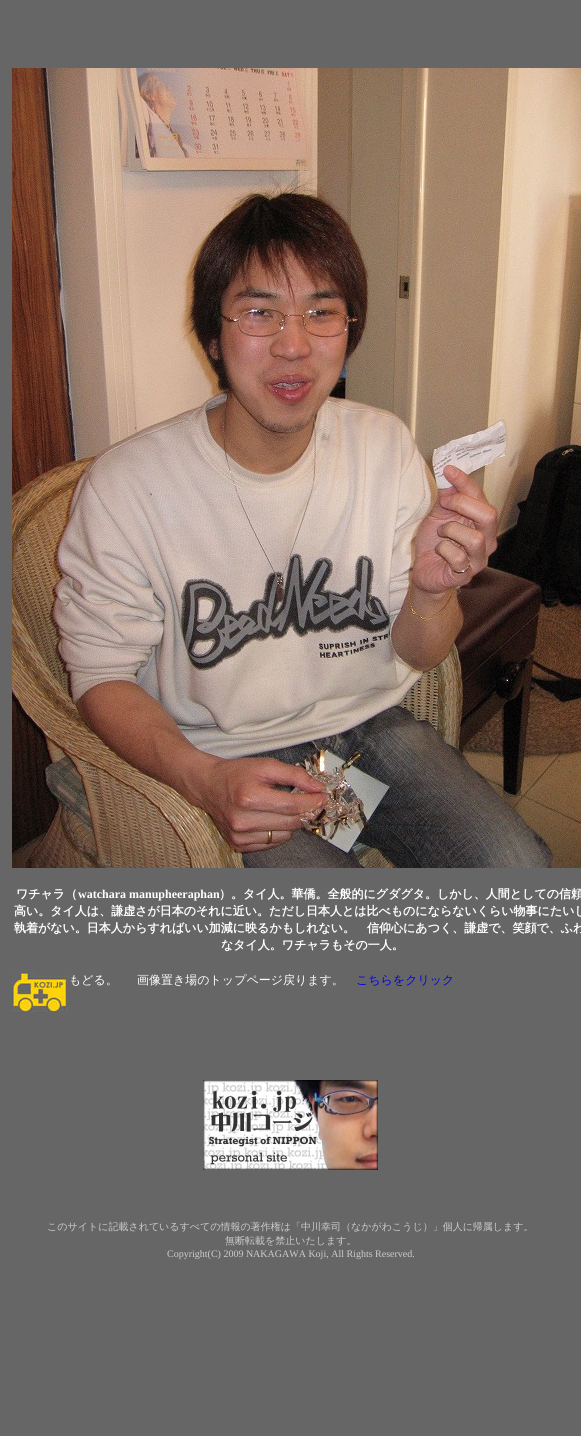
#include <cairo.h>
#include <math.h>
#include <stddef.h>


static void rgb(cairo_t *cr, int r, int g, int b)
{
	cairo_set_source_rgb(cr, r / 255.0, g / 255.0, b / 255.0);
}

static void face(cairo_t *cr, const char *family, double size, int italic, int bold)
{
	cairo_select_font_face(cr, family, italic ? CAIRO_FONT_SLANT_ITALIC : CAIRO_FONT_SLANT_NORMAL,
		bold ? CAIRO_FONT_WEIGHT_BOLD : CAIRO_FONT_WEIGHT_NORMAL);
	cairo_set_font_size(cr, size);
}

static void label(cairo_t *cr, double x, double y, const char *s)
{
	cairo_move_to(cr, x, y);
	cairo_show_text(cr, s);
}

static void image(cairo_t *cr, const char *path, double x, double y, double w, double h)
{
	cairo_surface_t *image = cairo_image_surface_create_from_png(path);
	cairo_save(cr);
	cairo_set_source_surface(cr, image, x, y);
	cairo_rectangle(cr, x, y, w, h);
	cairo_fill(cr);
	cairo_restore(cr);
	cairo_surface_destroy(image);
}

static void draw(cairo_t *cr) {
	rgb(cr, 102, 102, 102);
	cairo_paint(cr);
	image(cr, "image0.png", 12, 68, 569, 800);
	face(cr, "WenQuanYi Zen Hei", 12, 0, 1);
	rgb(cr, 255, 255, 255);
	label(cr, 16, 898, "ワチャラ（");
	face(cr, "Liberation Serif", 12, 0, 1);
	label(cr, 78, 898, "watchara manupheeraphan");
	face(cr, "WenQuanYi Zen Hei", 12, 0, 1);
	label(cr, 219, 898, "）。タイ人。華僑。全般的にグダグタ。しかし、人間としての信頼");
	label(cr, 14, 915, "高い。タイ人は、謙虚さが日本のそれに近い。ただし日本人とは比べものにならないくらい物事にたいし");
	label(cr, 14, 932, "執着がない。日本人からすればいい加減に映るかもしれない。　信仰心にあつく、謙虚で、笑顔で、ふわ");
	label(cr, 221, 949, "なタイ人。ワチャラもその一人。");
	image(cr, "image1.png", 12, 972, 56, 40);
	face(cr, "WenQuanYi Zen Hei Medium", 12, 0, 0);
	label(cr, 69, 984, "もどる。");
	label(cr, 137, 984, "画像置き場のトップページ戻ります。");
	rgb(cr, 0, 0, 238);
	label(cr, 356, 984, "こちらをクリック");
	image(cr, "image2.png", 203, 1080, 175, 90);
	face(cr, "WenQuanYi Zen Hei Medium", 10, 0, 0);
	rgb(cr, 204, 204, 204);
	label(cr, 47, 1230, "このサイトに記載されているすべての情報の著作権は「中川幸司（なかがわこうじ）」個人に帰属します。");
	label(cr, 225, 1244, "無断転載を禁止いたします。");
	face(cr, "Liberation Serif", 10, 0, 0);
	label(cr, 167, 1257, "Copyright(C) 2009 NAKAGAWA Koji, All Rights Reserved.");
}

int main(void) {
	cairo_surface_t *surface = cairo_image_surface_create(CAIRO_FORMAT_RGB24, 581, 1436);
	cairo_t *cr = cairo_create(surface);
	cairo_font_options_t *options = cairo_font_options_create();
	cairo_font_options_set_hint_metrics(options, CAIRO_HINT_METRICS_OFF);
	cairo_font_options_set_hint_style(options, CAIRO_HINT_STYLE_NONE);
	cairo_set_font_options(cr, options);
	cairo_set_miter_limit(cr, 4);
	draw(cr);
	cairo_surface_write_to_png(surface, "render.png");
	cairo_font_options_destroy(options);
	cairo_destroy(cr);
	cairo_surface_destroy(surface);
	return 0;
}
